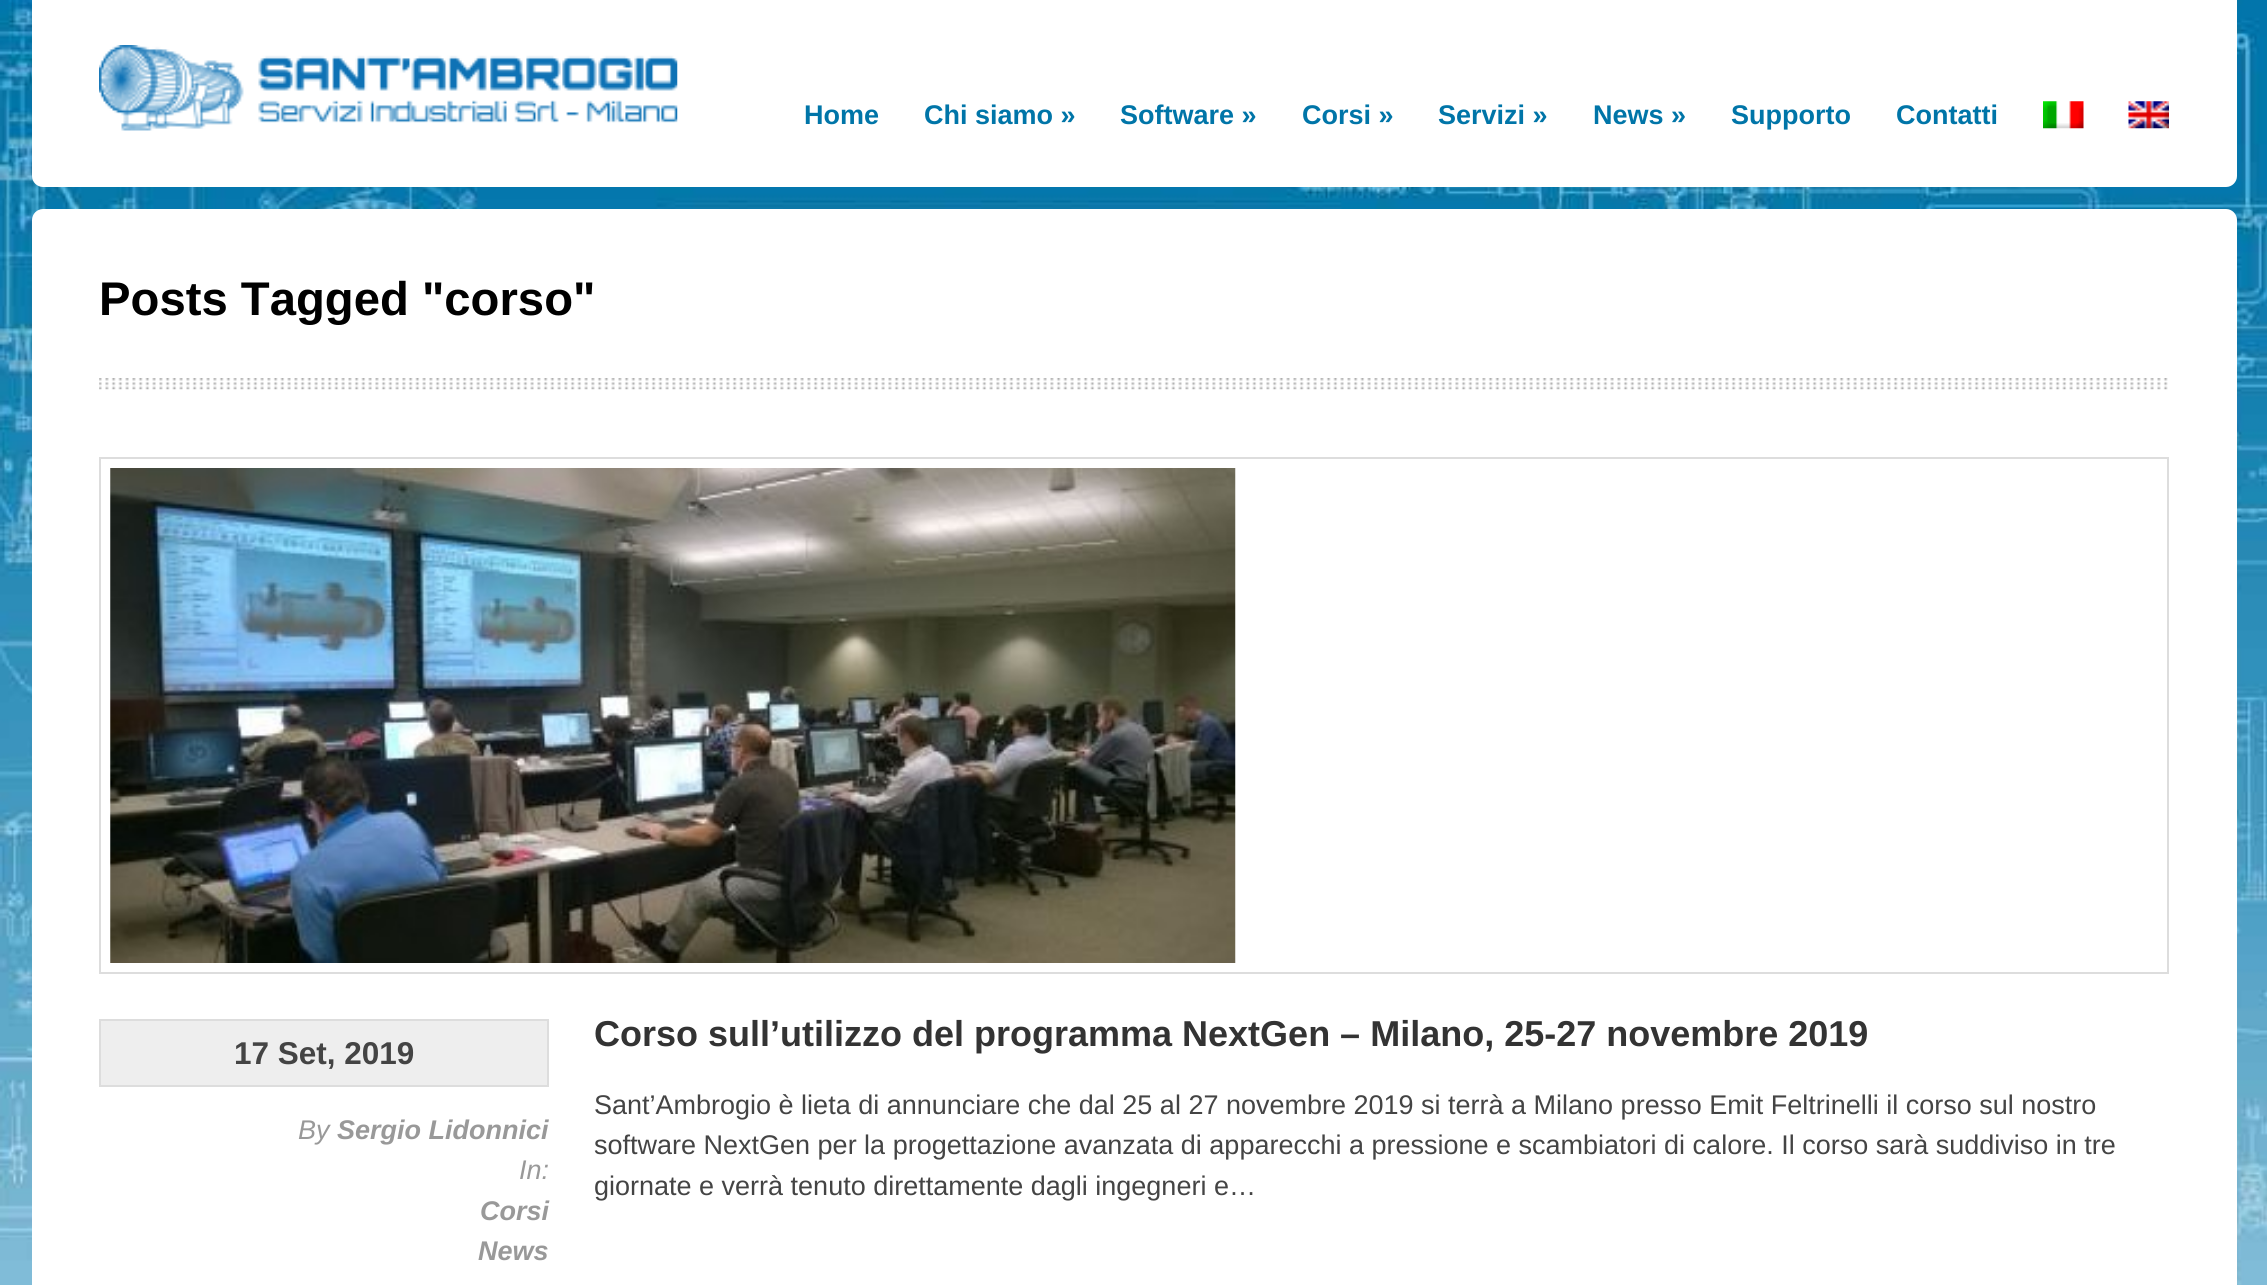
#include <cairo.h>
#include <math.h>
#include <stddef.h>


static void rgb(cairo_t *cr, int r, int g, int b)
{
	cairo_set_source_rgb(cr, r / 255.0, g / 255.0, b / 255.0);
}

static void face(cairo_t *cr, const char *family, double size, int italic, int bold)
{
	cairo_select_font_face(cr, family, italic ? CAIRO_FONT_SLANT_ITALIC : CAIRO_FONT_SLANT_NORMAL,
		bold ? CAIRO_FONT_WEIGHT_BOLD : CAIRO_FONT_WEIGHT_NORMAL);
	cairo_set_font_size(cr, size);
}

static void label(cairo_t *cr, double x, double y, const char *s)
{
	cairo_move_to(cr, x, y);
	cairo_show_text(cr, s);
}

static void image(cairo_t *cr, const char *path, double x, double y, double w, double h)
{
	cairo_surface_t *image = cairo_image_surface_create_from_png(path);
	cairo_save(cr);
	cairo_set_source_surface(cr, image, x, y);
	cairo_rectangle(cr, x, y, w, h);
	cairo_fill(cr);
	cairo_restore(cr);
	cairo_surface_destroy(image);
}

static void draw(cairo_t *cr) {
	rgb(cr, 255, 255, 255);
	cairo_paint(cr);
	image(cr, "image0.png", 0, 0, 2267, 1285);
	rgb(cr, 255, 255, 255);
	cairo_new_path(cr);
	cairo_move_to(cr, 32, 0);
	cairo_line_to(cr, 2237, 0);
	cairo_line_to(cr, 2237, 176);
	cairo_curve_to(cr, 2237, 182, 2232, 187, 2226, 187);
	cairo_line_to(cr, 43, 187);
	cairo_curve_to(cr, 37, 187, 32, 182, 32, 176);
	cairo_close_path(cr);
	cairo_fill(cr);
	image(cr, "image1.png", 99, 45, 579, 86);
	face(cr, "Liberation Sans", 27, 0, 1);
	rgb(cr, 0, 117, 168);
	label(cr, 804, 124, "Home");
	label(cr, 924, 124, "Chi siamo »");
	label(cr, 1120, 124, "Software »");
	label(cr, 1302, 124, "Corsi »");
	label(cr, 1438, 124, "Servizi »");
	label(cr, 1593, 124, "News »");
	label(cr, 1731, 124, "Supporto");
	label(cr, 1896, 124, "Contatti");
	image(cr, "image2.png", 2043, 101, 41, 28);
	image(cr, "image3.png", 2128, 101, 41, 28);
	rgb(cr, 255, 255, 255);
	cairo_new_path(cr);
	cairo_move_to(cr, 43, 209);
	cairo_line_to(cr, 2226, 209);
	cairo_curve_to(cr, 2232, 209, 2237, 214, 2237, 220);
	cairo_line_to(cr, 2237, 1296);
	cairo_line_to(cr, 32, 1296);
	cairo_line_to(cr, 32, 220);
	cairo_curve_to(cr, 32, 214, 37, 209, 43, 209);
	cairo_close_path(cr);
	cairo_fill(cr);
	image(cr, "image4.png", 99, 378, 2069, 12);
	face(cr, "Liberation Sans", 47.25, 0, 1);
	rgb(cr, 0, 0, 0);
	label(cr, 99, 315, "Posts Tagged \"corso\"");
	cairo_rectangle(cr, 100, 458, 2068, 515);
	rgb(cr, 221, 221, 221);
	cairo_stroke(cr);
	image(cr, "image5.png", 110, 468, 1126, 495);
	rgb(cr, 238, 238, 238);
	cairo_rectangle(cr, 100, 1020, 448, 66);
	cairo_fill_preserve(cr);
	rgb(cr, 221, 221, 221);
	cairo_stroke(cr);
	face(cr, "Liberation Sans", 31.5, 0, 1);
	rgb(cr, 68, 68, 68);
	label(cr, 234, 1064, "17 Set, 2019");
	face(cr, "Liberation Sans", 27, 1, 0);
	rgb(cr, 153, 153, 153);
	label(cr, 298, 1139, "By");
	face(cr, "Liberation Sans", 27, 1, 1);
	label(cr, 337, 1139, "Sergio Lidonnici");
	face(cr, "Liberation Sans", 27, 1, 0);
	label(cr, 519, 1179, "In:");
	face(cr, "Liberation Sans", 27, 1, 1);
	label(cr, 480, 1220, "Corsi");
	label(cr, 478, 1260, "News");
	face(cr, "Liberation Sans", 36, 0, 1);
	rgb(cr, 51, 51, 51);
	label(cr, 594, 1046, "Corso sull’utilizzo del programma NextGen – Milano, 25-27 novembre 2019");
	face(cr, "Liberation Sans", 27, 0, 0);
	rgb(cr, 68, 68, 68);
	label(cr, 594, 1114, "Sant’Ambrogio è lieta di annunciare che dal 25 al 27 novembre 2019 si terrà a Milano presso Emit Feltrinelli il corso sul nostro");
	label(cr, 594, 1154, "software NextGen per la progettazione avanzata di apparecchi a pressione e scambiatori di calore. Il corso sarà suddiviso in tre");
	label(cr, 594, 1195, "giornate e verrà tenuto direttamente dagli ingegneri e…");
}

int main(void) {
	cairo_surface_t *surface = cairo_image_surface_create(CAIRO_FORMAT_RGB24, 2267, 1285);
	cairo_t *cr = cairo_create(surface);
	cairo_font_options_t *options = cairo_font_options_create();
	cairo_font_options_set_hint_metrics(options, CAIRO_HINT_METRICS_OFF);
	cairo_font_options_set_hint_style(options, CAIRO_HINT_STYLE_NONE);
	cairo_set_font_options(cr, options);
	cairo_set_miter_limit(cr, 4);
	draw(cr);
	cairo_surface_write_to_png(surface, "render.png");
	cairo_font_options_destroy(options);
	cairo_destroy(cr);
	cairo_surface_destroy(surface);
	return 0;
}
